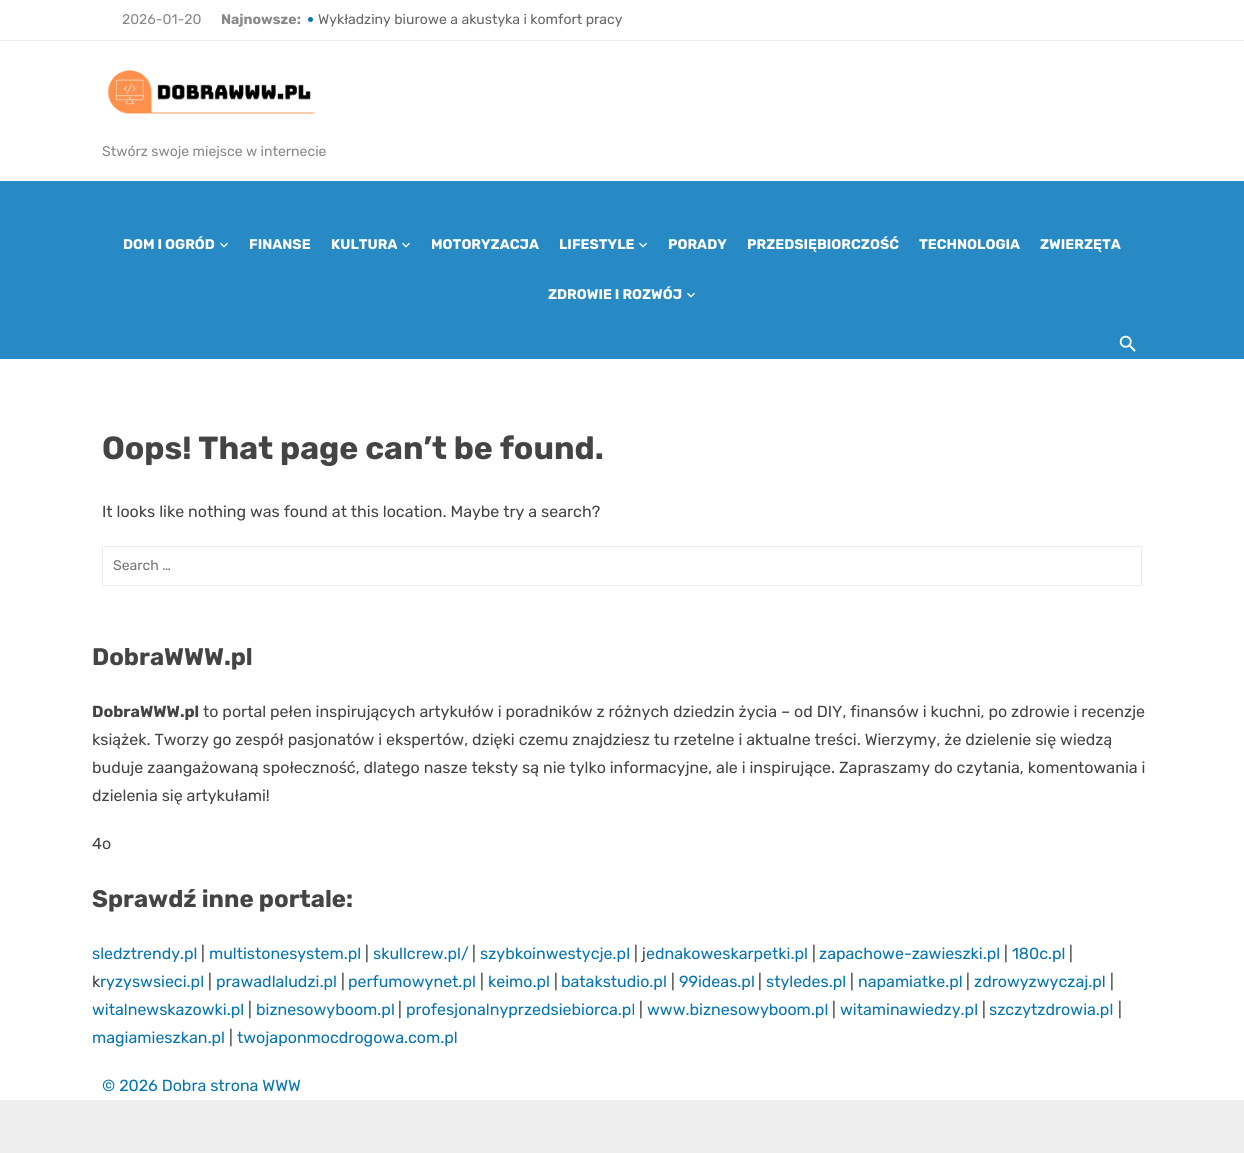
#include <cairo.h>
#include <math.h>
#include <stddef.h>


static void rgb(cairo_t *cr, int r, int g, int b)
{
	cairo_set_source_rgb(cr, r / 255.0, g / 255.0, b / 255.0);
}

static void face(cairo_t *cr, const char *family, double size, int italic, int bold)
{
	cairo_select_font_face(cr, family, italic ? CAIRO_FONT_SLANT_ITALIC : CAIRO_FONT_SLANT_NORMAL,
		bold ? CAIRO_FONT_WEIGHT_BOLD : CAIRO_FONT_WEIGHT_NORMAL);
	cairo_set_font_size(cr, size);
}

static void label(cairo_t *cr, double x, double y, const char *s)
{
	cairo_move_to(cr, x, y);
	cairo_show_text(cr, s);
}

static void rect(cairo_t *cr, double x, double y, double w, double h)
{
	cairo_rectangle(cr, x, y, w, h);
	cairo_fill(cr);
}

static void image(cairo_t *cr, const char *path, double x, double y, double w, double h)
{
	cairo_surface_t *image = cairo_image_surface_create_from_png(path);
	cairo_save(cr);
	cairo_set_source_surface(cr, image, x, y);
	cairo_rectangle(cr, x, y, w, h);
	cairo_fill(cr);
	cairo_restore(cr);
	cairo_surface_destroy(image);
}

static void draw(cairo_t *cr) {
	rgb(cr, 238, 238, 238);
	cairo_paint(cr);
	rgb(cr, 255, 255, 255);
	rect(cr, 0, 0, 1244, 1100);
	rgb(cr, 235, 235, 235);
	rect(cr, 0, 40, 1244, 1);
	face(cr, "Rubik", 14, 0, 0);
	rgb(cr, 136, 136, 136);
	label(cr, 122, 24, "2026-01-20");
	face(cr, "Rubik", 14, 0, 1);
	label(cr, 221, 24, "Najnowsze:");
	rgb(cr, 5, 115, 180);
	cairo_new_path(cr);
	cairo_arc(cr, 310.5, 19.5, 2.5, 0, 2 * M_PI);
	cairo_fill(cr);
	face(cr, "Rubik", 14, 0, 0);
	rgb(cr, 102, 102, 102);
	label(cr, 318, 24, "Wykładziny biurowe a akustyka i komfort pracy");
	image(cr, "image0.png", 107, 70, 208, 44);
	rgb(cr, 136, 136, 136);
	label(cr, 102, 156, "Stwórz swoje miejsce w internecie");
	rgb(cr, 40, 138, 196);
	rect(cr, 0, 181, 1244, 178);
	face(cr, "Rubik", 14, 0, 1);
	rgb(cr, 255, 255, 255);
	label(cr, 123, 249, "DOM I OGRÓD");
	image(cr, "image1.png", 220, 242, 8, 6);
	label(cr, 249, 249, "FINANSE");
	label(cr, 331, 249, "KULTURA");
	image(cr, "image1.png", 402, 242, 8, 6);
	label(cr, 431, 249, "MOTORYZACJA");
	label(cr, 559, 249, "LIFESTYLE");
	image(cr, "image1.png", 639, 242, 8, 6);
	label(cr, 668, 249, "PORADY");
	label(cr, 747, 249, "PRZEDSIĘBIORCZOŚĆ");
	label(cr, 919, 249, "TECHNOLOGIA");
	label(cr, 1040, 249, "ZWIERZĘTA");
	label(cr, 548, 299, "ZDROWIE I ROZWÓJ");
	image(cr, "image1.png", 687, 292, 8, 6);
	image(cr, "image2.png", 1119, 335, 17, 17);
	face(cr, "Rubik", 32, 0, 1);
	rgb(cr, 68, 68, 68);
	label(cr, 102, 459, "Oops! That page can’t be found.");
	face(cr, "Rubik", 16, 0, 0);
	label(cr, 102, 517, "It looks like nothing was found at this location. Maybe try a search?");
	cairo_rectangle(cr, 102.5, 546.5, 1039, 39);
	rgb(cr, 235, 235, 235);
	cairo_set_line_width(cr, 1);
	cairo_stroke(cr);
	face(cr, "Rubik", 14, 0, 0);
	rgb(cr, 117, 117, 117);
	label(cr, 113, 570, "Search …");
	face(cr, "Rubik", 24, 0, 1);
	rgb(cr, 68, 68, 68);
	label(cr, 92, 665, "DobraWWW.pl");
	face(cr, "Rubik", 16, 0, 1);
	label(cr, 92, 717, "DobraWWW.pl");
	face(cr, "Rubik", 16, 0, 0);
	label(cr, 203, 717, "to portal pełen inspirujących artykułów i poradników z różnych dziedzin życia – od DIY, finansów i kuchni, po zdrowie i recenzje");
	label(cr, 92, 745, "książek. Tworzy go zespół pasjonatów i ekspertów, dzięki czemu znajdziesz tu rzetelne i aktualne treści. Wierzymy, że dzielenie się wiedzą");
	label(cr, 92, 773, "buduje zaangażowaną społeczność, dlatego nasze teksty są nie tylko informacyjne, ale i inspirujące. Zapraszamy do czytania, komentowania i");
	label(cr, 92, 801, "dzielenia się artykułami!");
	label(cr, 92, 849, "4o");
	face(cr, "Rubik", 24, 0, 1);
	label(cr, 92, 907, "Sprawdź inne portale:");
	face(cr, "Rubik", 16, 0, 0);
	rgb(cr, 5, 115, 180);
	label(cr, 92, 959, "sledztrendy.pl");
	rgb(cr, 68, 68, 68);
	label(cr, 201, 959, "|");
	rgb(cr, 5, 115, 180);
	label(cr, 209, 959, "multistonesystem.pl");
	rgb(cr, 68, 68, 68);
	label(cr, 365, 959, "|");
	rgb(cr, 5, 115, 180);
	label(cr, 373, 959, "skullcrew.pl/");
	rgb(cr, 68, 68, 68);
	label(cr, 472, 959, "|");
	rgb(cr, 5, 115, 180);
	label(cr, 480, 959, "szybkoinwestycje.pl");
	rgb(cr, 68, 68, 68);
	label(cr, 634, 959, "| j");
	rgb(cr, 5, 115, 180);
	label(cr, 646, 959, "ednakoweskarpetki.pl");
	rgb(cr, 68, 68, 68);
	label(cr, 812, 959, "|");
	rgb(cr, 5, 115, 180);
	label(cr, 819, 959, "zapachowe-zawieszki.pl");
	rgb(cr, 68, 68, 68);
	label(cr, 1004, 959, "|");
	rgb(cr, 5, 115, 180);
	label(cr, 1012, 959, "180c.pl");
	rgb(cr, 68, 68, 68);
	label(cr, 1069, 959, "|");
	label(cr, 92, 987, "k");
	rgb(cr, 5, 115, 180);
	label(cr, 100, 987, "ryzyswsieci.pl");
	rgb(cr, 68, 68, 68);
	label(cr, 208, 987, "|");
	rgb(cr, 5, 115, 180);
	label(cr, 216, 987, "prawadlaludzi.pl");
	rgb(cr, 68, 68, 68);
	label(cr, 341, 987, "|");
	rgb(cr, 5, 115, 180);
	label(cr, 348, 987, "perfumowynet.pl");
	rgb(cr, 68, 68, 68);
	label(cr, 480, 987, "|");
	rgb(cr, 5, 115, 180);
	label(cr, 488, 987, "keimo.pl");
	rgb(cr, 68, 68, 68);
	label(cr, 554, 987, "|");
	rgb(cr, 5, 115, 180);
	label(cr, 561, 987, "batakstudio.pl");
	rgb(cr, 68, 68, 68);
	label(cr, 671, 987, "|");
	rgb(cr, 5, 115, 180);
	label(cr, 679, 987, "99ideas.pl");
	rgb(cr, 68, 68, 68);
	label(cr, 758, 987, "|");
	rgb(cr, 5, 115, 180);
	label(cr, 766, 987, "styledes.pl");
	rgb(cr, 68, 68, 68);
	label(cr, 850, 987, "|");
	rgb(cr, 5, 115, 180);
	label(cr, 858, 987, "napamiatke.pl");
	rgb(cr, 68, 68, 68);
	label(cr, 966, 987, "|");
	rgb(cr, 5, 115, 180);
	label(cr, 974, 987, "zdrowyzwyczaj.pl");
	rgb(cr, 68, 68, 68);
	label(cr, 1110, 987, "|");
	rgb(cr, 5, 115, 180);
	label(cr, 92, 1015, "witalnewskazowki.pl");
	rgb(cr, 68, 68, 68);
	label(cr, 248, 1015, "|");
	rgb(cr, 5, 115, 180);
	label(cr, 256, 1015, "biznesowyboom.pl");
	rgb(cr, 68, 68, 68);
	label(cr, 398, 1015, "|");
	rgb(cr, 5, 115, 180);
	label(cr, 406, 1015, "profesjonalnyprzedsiebiorca.pl");
	rgb(cr, 68, 68, 68);
	label(cr, 639, 1015, "|");
	rgb(cr, 5, 115, 180);
	label(cr, 647, 1015, "www.biznesowyboom.pl");
	rgb(cr, 68, 68, 68);
	label(cr, 832, 1015, "|");
	rgb(cr, 5, 115, 180);
	label(cr, 840, 1015, "witaminawiedzy.pl");
	rgb(cr, 68, 68, 68);
	label(cr, 982, 1015, "|");
	rgb(cr, 5, 115, 180);
	label(cr, 989, 1015, "szczytzdrowia.pl");
	rgb(cr, 68, 68, 68);
	label(cr, 1118, 1015, "|");
	rgb(cr, 5, 115, 180);
	label(cr, 92, 1043, "magiamieszkan.pl");
	rgb(cr, 68, 68, 68);
	label(cr, 229, 1043, "|");
	rgb(cr, 5, 115, 180);
	label(cr, 237, 1043, "twojaponmocdrogowa.com.pl");
	label(cr, 102, 1091, "© 2026 Dobra strona WWW");
}

int main(void) {
	cairo_surface_t *surface = cairo_image_surface_create(CAIRO_FORMAT_RGB24, 1244, 1153);
	cairo_t *cr = cairo_create(surface);
	cairo_font_options_t *options = cairo_font_options_create();
	cairo_font_options_set_hint_metrics(options, CAIRO_HINT_METRICS_OFF);
	cairo_font_options_set_hint_style(options, CAIRO_HINT_STYLE_NONE);
	cairo_set_font_options(cr, options);
	cairo_set_miter_limit(cr, 4);
	draw(cr);
	cairo_surface_write_to_png(surface, "render.png");
	cairo_font_options_destroy(options);
	cairo_destroy(cr);
	cairo_surface_destroy(surface);
	return 0;
}
